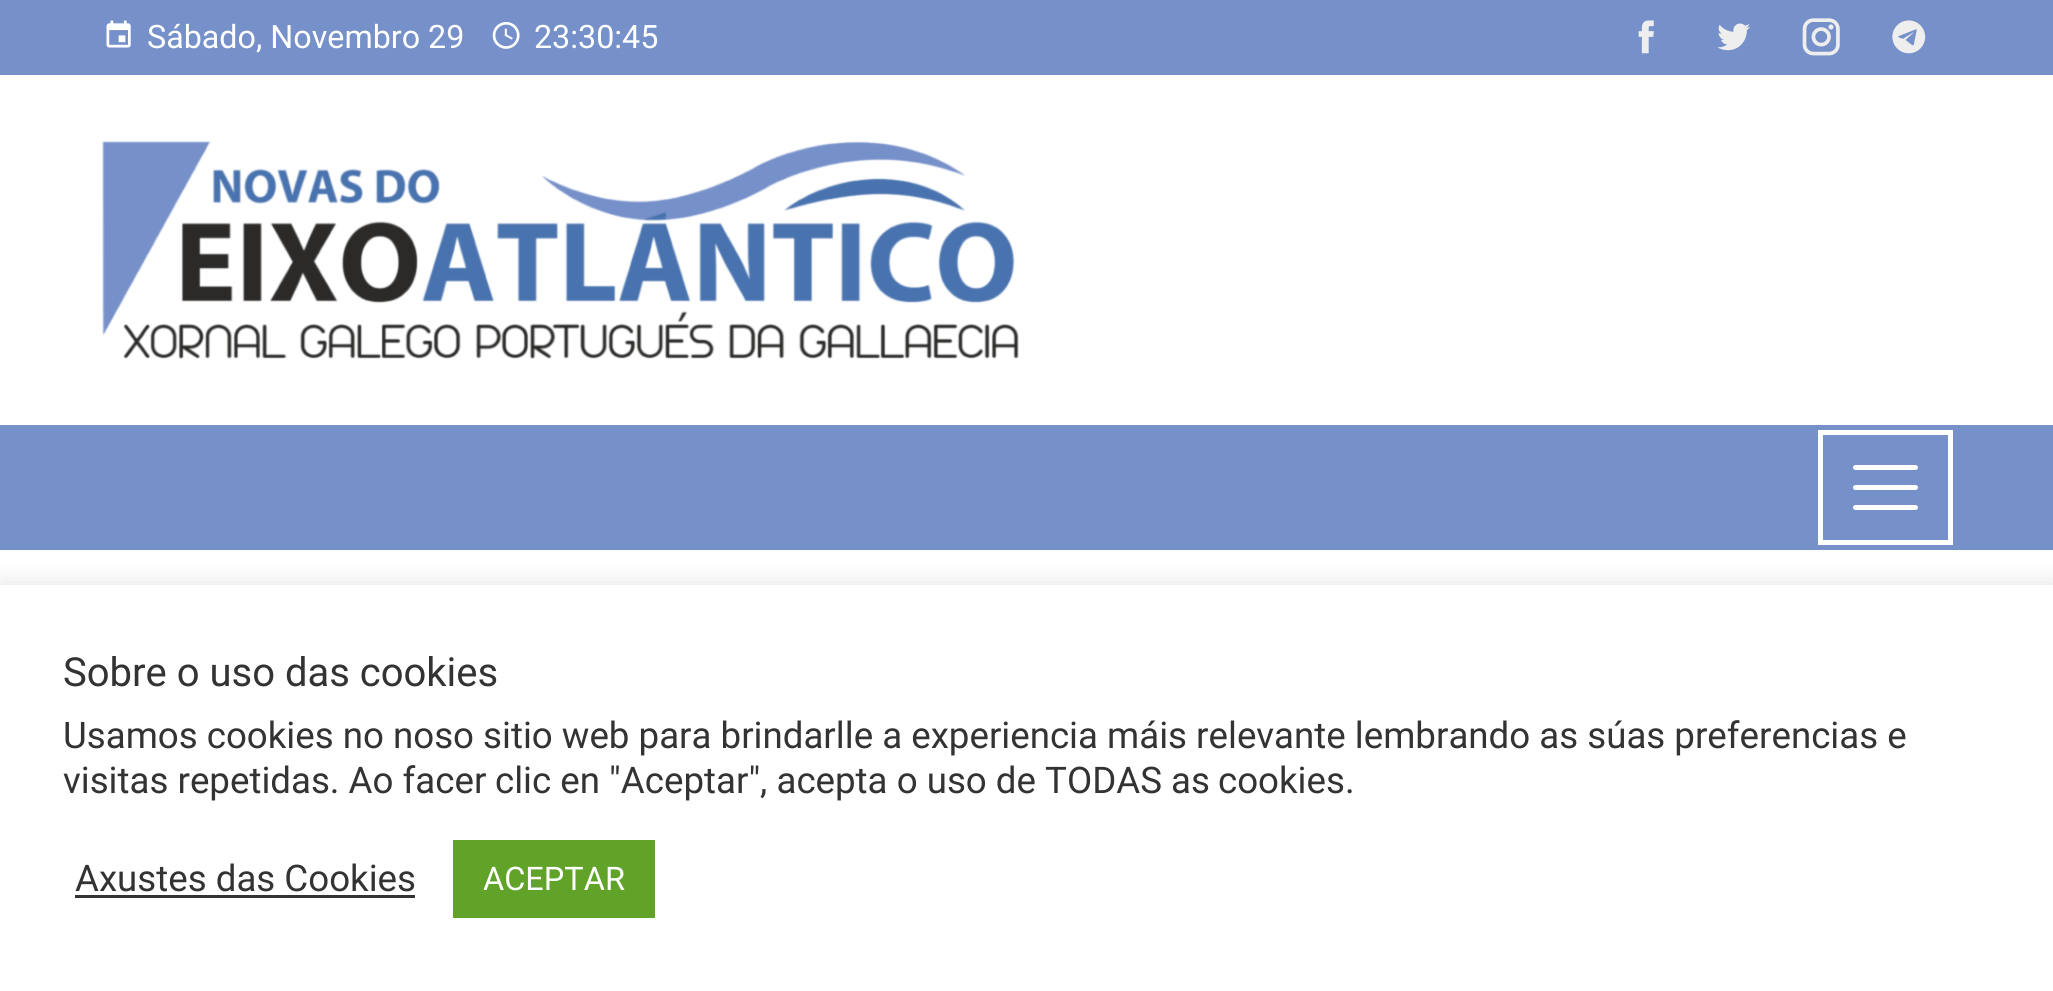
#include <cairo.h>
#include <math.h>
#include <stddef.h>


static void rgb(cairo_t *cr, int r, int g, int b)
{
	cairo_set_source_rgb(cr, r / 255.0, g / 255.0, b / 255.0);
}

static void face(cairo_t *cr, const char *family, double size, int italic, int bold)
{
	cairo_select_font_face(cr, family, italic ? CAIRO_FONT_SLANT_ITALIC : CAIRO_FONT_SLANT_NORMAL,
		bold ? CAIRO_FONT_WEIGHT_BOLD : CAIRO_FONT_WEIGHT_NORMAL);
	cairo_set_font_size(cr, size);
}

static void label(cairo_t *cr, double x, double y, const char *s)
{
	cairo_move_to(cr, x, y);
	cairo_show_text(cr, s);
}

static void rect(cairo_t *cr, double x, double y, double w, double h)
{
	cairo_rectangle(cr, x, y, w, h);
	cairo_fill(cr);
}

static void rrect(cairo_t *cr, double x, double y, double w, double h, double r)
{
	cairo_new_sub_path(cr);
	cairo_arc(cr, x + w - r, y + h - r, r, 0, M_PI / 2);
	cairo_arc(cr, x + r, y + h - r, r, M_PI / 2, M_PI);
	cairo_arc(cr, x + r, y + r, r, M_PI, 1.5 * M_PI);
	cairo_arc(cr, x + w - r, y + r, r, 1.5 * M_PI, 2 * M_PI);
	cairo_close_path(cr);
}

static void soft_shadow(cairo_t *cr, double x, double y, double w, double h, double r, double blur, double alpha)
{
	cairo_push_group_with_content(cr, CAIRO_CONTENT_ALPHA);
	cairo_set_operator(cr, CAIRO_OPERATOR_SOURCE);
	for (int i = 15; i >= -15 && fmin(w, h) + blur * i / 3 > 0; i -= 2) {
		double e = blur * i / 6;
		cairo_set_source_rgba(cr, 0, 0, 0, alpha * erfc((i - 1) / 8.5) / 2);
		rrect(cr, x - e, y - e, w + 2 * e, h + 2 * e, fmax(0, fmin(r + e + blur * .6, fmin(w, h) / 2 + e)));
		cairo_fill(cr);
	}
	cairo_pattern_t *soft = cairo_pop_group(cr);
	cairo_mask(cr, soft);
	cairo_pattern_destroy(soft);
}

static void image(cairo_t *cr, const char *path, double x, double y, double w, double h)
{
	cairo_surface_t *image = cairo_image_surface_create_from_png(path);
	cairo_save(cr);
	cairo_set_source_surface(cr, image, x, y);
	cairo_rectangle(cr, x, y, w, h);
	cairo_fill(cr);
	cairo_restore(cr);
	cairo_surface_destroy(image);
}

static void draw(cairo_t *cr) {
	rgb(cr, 255, 255, 255);
	cairo_paint(cr);
	rgb(cr, 118, 144, 201);
	rect(cr, 0, 0, 2053, 75);
	image(cr, "image0.png", 106, 20, 25, 28);
	face(cr, "Roboto", 32.25, 0, 0);
	rgb(cr, 255, 255, 255);
	label(cr, 147, 48, "Sábado, Novembro 29");
	image(cr, "image1.png", 492, 22, 28, 27);
	label(cr, 534, 48, "23:30:45");
	image(cr, "image2.png", 1638, 20, 16, 34);
	image(cr, "image3.png", 1717, 23, 33, 28);
	image(cr, "image4.png", 1802, 18, 38, 38);
	image(cr, "image5.png", 1892, 20, 34, 34);
	image(cr, "image6.png", 102, 140, 917, 220);
	rgb(cr, 118, 144, 201);
	rect(cr, 0, 425, 2053, 125);
	cairo_rectangle(cr, 1820.5, 432.5, 130, 110);
	rgb(cr, 255, 255, 255);
	cairo_set_line_width(cr, 5);
	cairo_stroke(cr);
	rrect(cr, 1853, 465, 65, 5, 2.5);
	cairo_fill(cr);
	rrect(cr, 1853, 485, 65, 5, 2.5);
	cairo_fill(cr);
	rrect(cr, 1853, 505, 65, 5, 2.5);
	cairo_fill(cr);
	rgb(cr, 172, 171, 171);
	soft_shadow(cr, 0, 583, 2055, 407, 0, 12.5, 0.3);
	rgb(cr, 255, 255, 255);
	rect(cr, 0, 585, 2053, 406);
	face(cr, "Roboto", 40, 0, 0);
	rgb(cr, 51, 51, 51);
	label(cr, 63, 686, "Sobre o uso das cookies");
	face(cr, "Roboto", 36.67, 0, 0);
	label(cr, 63, 748, "Usamos cookies no noso sitio web para brindarlle a experiencia máis relevante lembrando as súas preferencias e");
	label(cr, 63, 793, "visitas repetidas. Ao facer");
	label(cr, 495, 793, "clic en \"Aceptar\", acepta o uso de TODAS as");
	label(cr, 1218, 793, "cookies.");
	label(cr, 75, 891, "Axustes das Cookies");
	rect(cr, 75, 895, 340, 3);
	rgb(cr, 97, 162, 41);
	rect(cr, 453, 840, 202, 78);
	face(cr, "Roboto", 32.5, 0, 0);
	rgb(cr, 255, 255, 255);
	label(cr, 483, 890, "ACEPTAR");
}

int main(void) {
	cairo_surface_t *surface = cairo_image_surface_create(CAIRO_FORMAT_RGB24, 2053, 991);
	cairo_t *cr = cairo_create(surface);
	cairo_font_options_t *options = cairo_font_options_create();
	cairo_font_options_set_hint_metrics(options, CAIRO_HINT_METRICS_OFF);
	cairo_font_options_set_hint_style(options, CAIRO_HINT_STYLE_NONE);
	cairo_set_font_options(cr, options);
	cairo_set_miter_limit(cr, 4);
	draw(cr);
	cairo_surface_write_to_png(surface, "render.png");
	cairo_font_options_destroy(options);
	cairo_destroy(cr);
	cairo_surface_destroy(surface);
	return 0;
}
